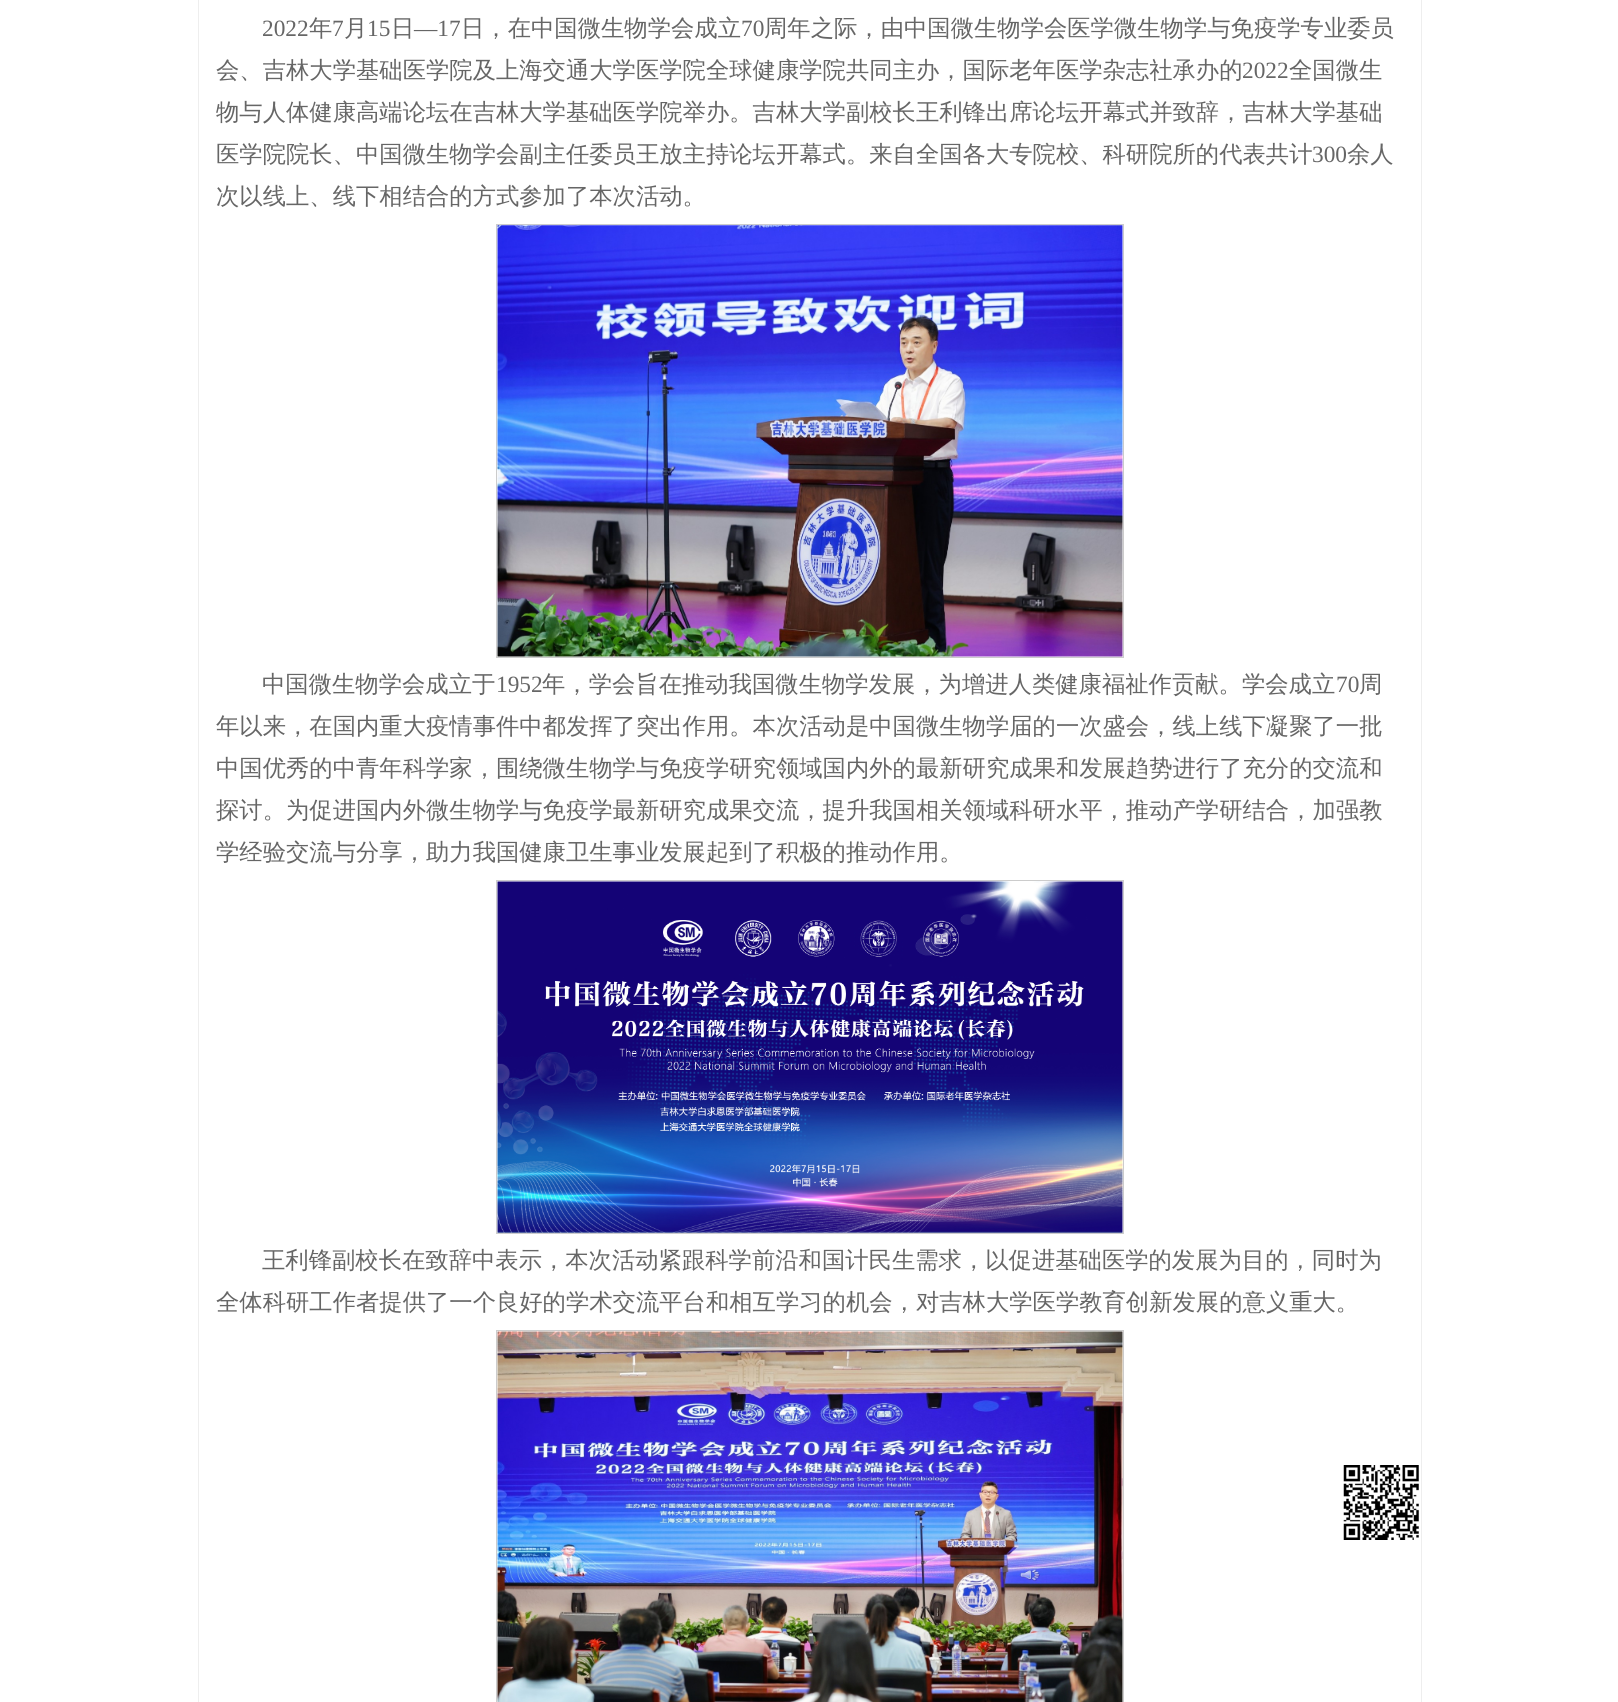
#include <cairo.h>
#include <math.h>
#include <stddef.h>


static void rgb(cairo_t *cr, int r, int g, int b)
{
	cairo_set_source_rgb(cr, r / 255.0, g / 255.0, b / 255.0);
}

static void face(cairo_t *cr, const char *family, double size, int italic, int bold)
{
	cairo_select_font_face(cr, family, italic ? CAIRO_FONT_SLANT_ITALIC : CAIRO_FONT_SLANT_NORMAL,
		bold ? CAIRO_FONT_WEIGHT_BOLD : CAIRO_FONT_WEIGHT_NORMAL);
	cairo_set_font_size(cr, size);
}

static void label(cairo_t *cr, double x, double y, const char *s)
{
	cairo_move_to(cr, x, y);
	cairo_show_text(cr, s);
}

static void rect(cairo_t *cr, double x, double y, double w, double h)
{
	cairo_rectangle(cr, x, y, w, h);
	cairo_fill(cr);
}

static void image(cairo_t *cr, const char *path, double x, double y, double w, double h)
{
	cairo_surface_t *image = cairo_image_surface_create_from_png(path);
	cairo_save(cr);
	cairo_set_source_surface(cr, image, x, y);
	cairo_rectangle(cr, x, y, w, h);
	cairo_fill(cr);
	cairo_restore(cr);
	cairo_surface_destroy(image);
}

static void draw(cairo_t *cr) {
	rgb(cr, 255, 255, 255);
	cairo_paint(cr);
	rgb(cr, 238, 238, 238);
	rect(cr, 1421, 0, 1, 1702);
	rect(cr, 198, 0, 1, 1702);
	face(cr, "Liberation Serif", 23.33, 0, 0);
	rgb(cr, 102, 102, 102);
	label(cr, 262, 36, "2022");
	face(cr, "WenQuanYi Zen Hei Medium", 23.33, 0, 0);
	label(cr, 309, 36, "年");
	face(cr, "Liberation Serif", 23.33, 0, 0);
	label(cr, 332, 36, "7");
	face(cr, "WenQuanYi Zen Hei Medium", 23.33, 0, 0);
	label(cr, 344, 36, "月");
	face(cr, "Liberation Serif", 23.33, 0, 0);
	label(cr, 367, 36, "15");
	face(cr, "WenQuanYi Zen Hei Medium", 23.33, 0, 0);
	label(cr, 391, 36, "日");
	face(cr, "Liberation Serif", 23.33, 0, 0);
	label(cr, 414, 36, "—17");
	face(cr, "WenQuanYi Zen Hei Medium", 23.33, 0, 0);
	label(cr, 461, 36, "日，在中国微生物学会成立");
	face(cr, "Liberation Serif", 23.33, 0, 0);
	label(cr, 741, 36, "70");
	face(cr, "WenQuanYi Zen Hei Medium", 23.33, 0, 0);
	label(cr, 764, 36, "周年之际，由中国微生物学会医学微生物学与免疫学专业委员");
	label(cr, 216, 78, "会、吉林大学基础医学院及上海交通大学医学院全球健康学院共同主办，国际老年医学杂志社承办的");
	face(cr, "Liberation Serif", 23.33, 0, 0);
	label(cr, 1242, 78, "2022");
	face(cr, "WenQuanYi Zen Hei Medium", 23.33, 0, 0);
	label(cr, 1289, 78, "全国微生");
	label(cr, 216, 120, "物与人体健康高端论坛在吉林大学基础医学院举办。吉林大学副校长王利锋出席论坛开幕式并致辞，吉林大学基础");
	label(cr, 216, 162, "医学院院长、中国微生物学会副主任委员王放主持论坛开幕式。来自全国各大专院校、科研院所的代表共计");
	face(cr, "Liberation Serif", 23.33, 0, 0);
	label(cr, 1312, 162, "300");
	face(cr, "WenQuanYi Zen Hei Medium", 23.33, 0, 0);
	label(cr, 1347, 162, "余人");
	label(cr, 216, 204, "次以线上、线下相结合的方式参加了本次活动。");
	cairo_rectangle(cr, 496.5, 224.5, 627, 433);
	rgb(cr, 204, 204, 204);
	cairo_set_line_width(cr, 1);
	cairo_stroke(cr);
	image(cr, "image0.png", 497, 225, 626, 432);
	rgb(cr, 102, 102, 102);
	label(cr, 262, 692, "中国微生物学会成立于");
	face(cr, "Liberation Serif", 23.33, 0, 0);
	label(cr, 496, 692, "1952");
	face(cr, "WenQuanYi Zen Hei Medium", 23.33, 0, 0);
	label(cr, 542, 692, "年，学会旨在推动我国微生物学发展，为增进人类健康福祉作贡献。学会成立");
	face(cr, "Liberation Serif", 23.33, 0, 0);
	label(cr, 1336, 692, "70");
	face(cr, "WenQuanYi Zen Hei Medium", 23.33, 0, 0);
	label(cr, 1359, 692, "周");
	label(cr, 216, 734, "年以来，在国内重大疫情事件中都发挥了突出作用。本次活动是中国微生物学届的一次盛会，线上线下凝聚了一批");
	label(cr, 216, 776, "中国优秀的中青年科学家，围绕微生物学与免疫学研究领域国内外的最新研究成果和发展趋势进行了充分的交流和");
	label(cr, 216, 818, "探讨。为促进国内外微生物学与免疫学最新研究成果交流，提升我国相关领域科研水平，推动产学研结合，加强教");
	label(cr, 216, 860, "学经验交流与分享，助力我国健康卫生事业发展起到了积极的推动作用。");
	cairo_rectangle(cr, 496.5, 880.5, 627, 353);
	rgb(cr, 204, 204, 204);
	cairo_stroke(cr);
	image(cr, "image1.png", 497, 881, 626, 352);
	rgb(cr, 102, 102, 102);
	label(cr, 262, 1268, "王利锋副校长在致辞中表示，本次活动紧跟科学前沿和国计民生需求，以促进基础医学的发展为目的，同时为");
	label(cr, 216, 1310, "全体科研工作者提供了一个良好的学术交流平台和相互学习的机会，对吉林大学医学教育创新发展的意义重大。");
	cairo_rectangle(cr, 496.5, 1330.5, 627, 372);
	rgb(cr, 204, 204, 204);
	cairo_stroke(cr);
	image(cr, "image2.png", 497, 1331, 626, 371);
	image(cr, "image3.png", 1343, 1465, 76, 75);
}

int main(void) {
	cairo_surface_t *surface = cairo_image_surface_create(CAIRO_FORMAT_RGB24, 1618, 1702);
	cairo_t *cr = cairo_create(surface);
	cairo_font_options_t *options = cairo_font_options_create();
	cairo_font_options_set_hint_metrics(options, CAIRO_HINT_METRICS_OFF);
	cairo_font_options_set_hint_style(options, CAIRO_HINT_STYLE_NONE);
	cairo_set_font_options(cr, options);
	cairo_set_miter_limit(cr, 4);
	draw(cr);
	cairo_surface_write_to_png(surface, "render.png");
	cairo_font_options_destroy(options);
	cairo_destroy(cr);
	cairo_surface_destroy(surface);
	return 0;
}
